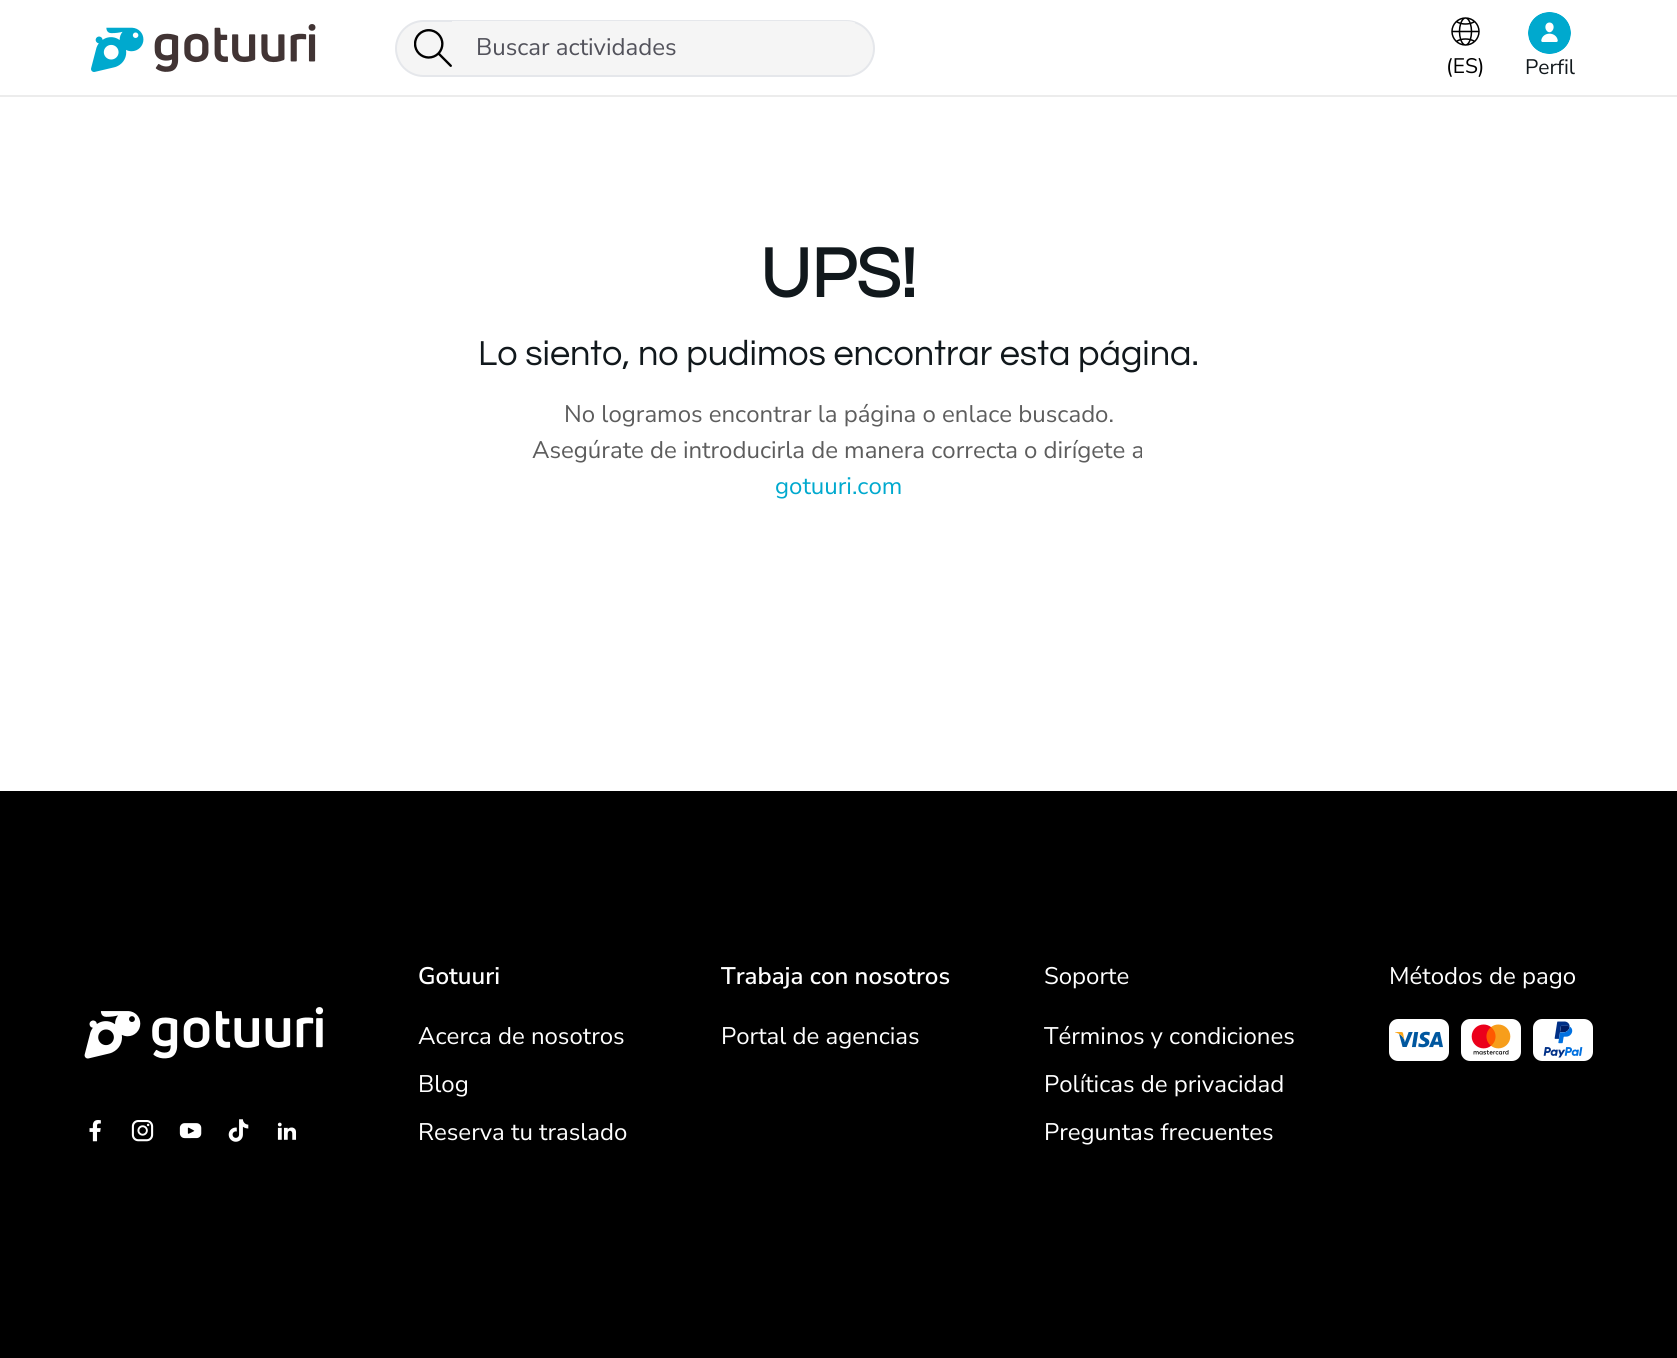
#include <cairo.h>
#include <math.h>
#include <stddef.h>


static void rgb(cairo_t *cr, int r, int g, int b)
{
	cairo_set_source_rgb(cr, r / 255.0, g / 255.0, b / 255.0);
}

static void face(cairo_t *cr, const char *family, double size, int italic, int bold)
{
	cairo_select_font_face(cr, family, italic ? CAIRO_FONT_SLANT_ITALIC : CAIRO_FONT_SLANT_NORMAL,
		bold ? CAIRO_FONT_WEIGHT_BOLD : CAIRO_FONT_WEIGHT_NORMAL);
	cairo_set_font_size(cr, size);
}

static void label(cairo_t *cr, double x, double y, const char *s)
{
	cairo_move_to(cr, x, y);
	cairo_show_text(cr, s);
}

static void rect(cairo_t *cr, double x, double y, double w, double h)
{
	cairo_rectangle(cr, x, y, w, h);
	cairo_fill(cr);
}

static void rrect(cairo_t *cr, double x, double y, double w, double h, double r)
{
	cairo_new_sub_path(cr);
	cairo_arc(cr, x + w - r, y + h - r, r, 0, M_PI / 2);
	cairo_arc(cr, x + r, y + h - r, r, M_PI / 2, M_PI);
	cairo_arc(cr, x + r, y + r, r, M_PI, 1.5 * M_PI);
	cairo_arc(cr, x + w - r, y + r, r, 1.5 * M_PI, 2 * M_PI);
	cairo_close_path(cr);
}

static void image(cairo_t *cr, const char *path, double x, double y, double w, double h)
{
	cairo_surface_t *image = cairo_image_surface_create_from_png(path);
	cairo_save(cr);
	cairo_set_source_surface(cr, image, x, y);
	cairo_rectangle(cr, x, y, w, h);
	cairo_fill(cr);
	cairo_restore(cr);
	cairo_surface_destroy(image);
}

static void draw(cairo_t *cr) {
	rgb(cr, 255, 255, 255);
	cairo_paint(cr);
	rgb(cr, 236, 236, 236);
	rect(cr, 0, 95, 1677, 2);
	image(cr, "image0.png", 91, 24, 225, 48);
	rgb(cr, 245, 245, 245);
	rrect(cr, 396, 21, 478, 55, 27.5);
	cairo_fill_preserve(cr);
	rgb(cr, 229, 231, 235);
	cairo_stroke(cr);
	image(cr, "image1.png", 414, 29, 38, 38);
	cairo_save(cr);
	rrect(cr, 396, 21, 477, 54, 27);
	cairo_clip(cr);
	rgb(cr, 245, 245, 245);
	rect(cr, 452, 21, 403, 54);
	cairo_restore(cr);
	face(cr, "Nunito Sans", 24, 0, 0);
	rgb(cr, 82, 82, 91);
	label(cr, 476, 55, "Buscar actividades");
	image(cr, "image2.png", 1451, 17, 29, 29);
	face(cr, "Nunito Sans", 21, 0, 0);
	rgb(cr, 0, 0, 0);
	label(cr, 1446, 73, "(ES)");
	image(cr, "image3.png", 1528, 12, 43, 42);
	rgb(cr, 17, 24, 28);
	label(cr, 1525, 74, "Perfil");
	face(cr, "Questrial", 72, 0, 1);
	label(cr, 760, 297, "UPS!");
	face(cr, "Questrial", 36, 0, 0);
	label(cr, 478, 365, "Lo siento, no pudimos encontrar esta página.");
	face(cr, "Nunito Sans", 24, 0, 0);
	rgb(cr, 93, 93, 93);
	label(cr, 564, 422, "No logramos encontrar la página o enlace buscado.");
	label(cr, 532, 458, "Asegúrate de introducirla de manera correcta o dirígete a");
	rgb(cr, 0, 169, 206);
	label(cr, 775, 494, "gotuuri.com");
	rgb(cr, 0, 0, 0);
	rect(cr, 0, 791, 1677, 567);
	image(cr, "image4.png", 84, 1007, 240, 52);
	image(cr, "image5.png", 89, 1120, 12, 22);
	image(cr, "image6.png", 131, 1120, 23, 22);
	image(cr, "image7.png", 179, 1123, 23, 16);
	image(cr, "image8.png", 228, 1119, 21, 23);
	image(cr, "image9.png", 277, 1122, 20, 18);
	face(cr, "Nunito Sans SemiBold", 24, 0, 0);
	rgb(cr, 255, 255, 255);
	label(cr, 418, 984, "Gotuuri");
	face(cr, "Nunito Sans", 24, 0, 0);
	label(cr, 418, 1044, "Acerca de nosotros");
	label(cr, 418, 1092, "Blog");
	label(cr, 418, 1140, "Reserva tu traslado");
	face(cr, "Nunito Sans SemiBold", 24, 0, 0);
	label(cr, 721, 984, "Trabaja con nosotros");
	face(cr, "Nunito Sans", 24, 0, 0);
	label(cr, 721, 1044, "Portal de agencias");
	label(cr, 1044, 984, "Soporte");
	label(cr, 1044, 1044, "Términos y condiciones");
	label(cr, 1044, 1092, "Políticas de privacidad");
	label(cr, 1044, 1140, "Preguntas frecuentes");
	label(cr, 1389, 984, "Métodos de pago");
	rrect(cr, 1389, 1019, 60, 42, 9);
	cairo_fill(cr);
	image(cr, "image10.png", 1395, 1031, 48, 17);
	rrect(cr, 1461, 1019, 60, 42, 9);
	cairo_fill(cr);
	image(cr, "image11.png", 1471, 1024, 40, 31);
	rrect(cr, 1533, 1019, 60, 42, 9);
	cairo_fill(cr);
	image(cr, "image12.png", 1543, 1021, 40, 37);
}

int main(void) {
	cairo_surface_t *surface = cairo_image_surface_create(CAIRO_FORMAT_RGB24, 1677, 1358);
	cairo_t *cr = cairo_create(surface);
	cairo_font_options_t *options = cairo_font_options_create();
	cairo_font_options_set_hint_metrics(options, CAIRO_HINT_METRICS_OFF);
	cairo_font_options_set_hint_style(options, CAIRO_HINT_STYLE_NONE);
	cairo_set_font_options(cr, options);
	cairo_set_miter_limit(cr, 4);
	draw(cr);
	cairo_surface_write_to_png(surface, "render.png");
	cairo_font_options_destroy(options);
	cairo_destroy(cr);
	cairo_surface_destroy(surface);
	return 0;
}
